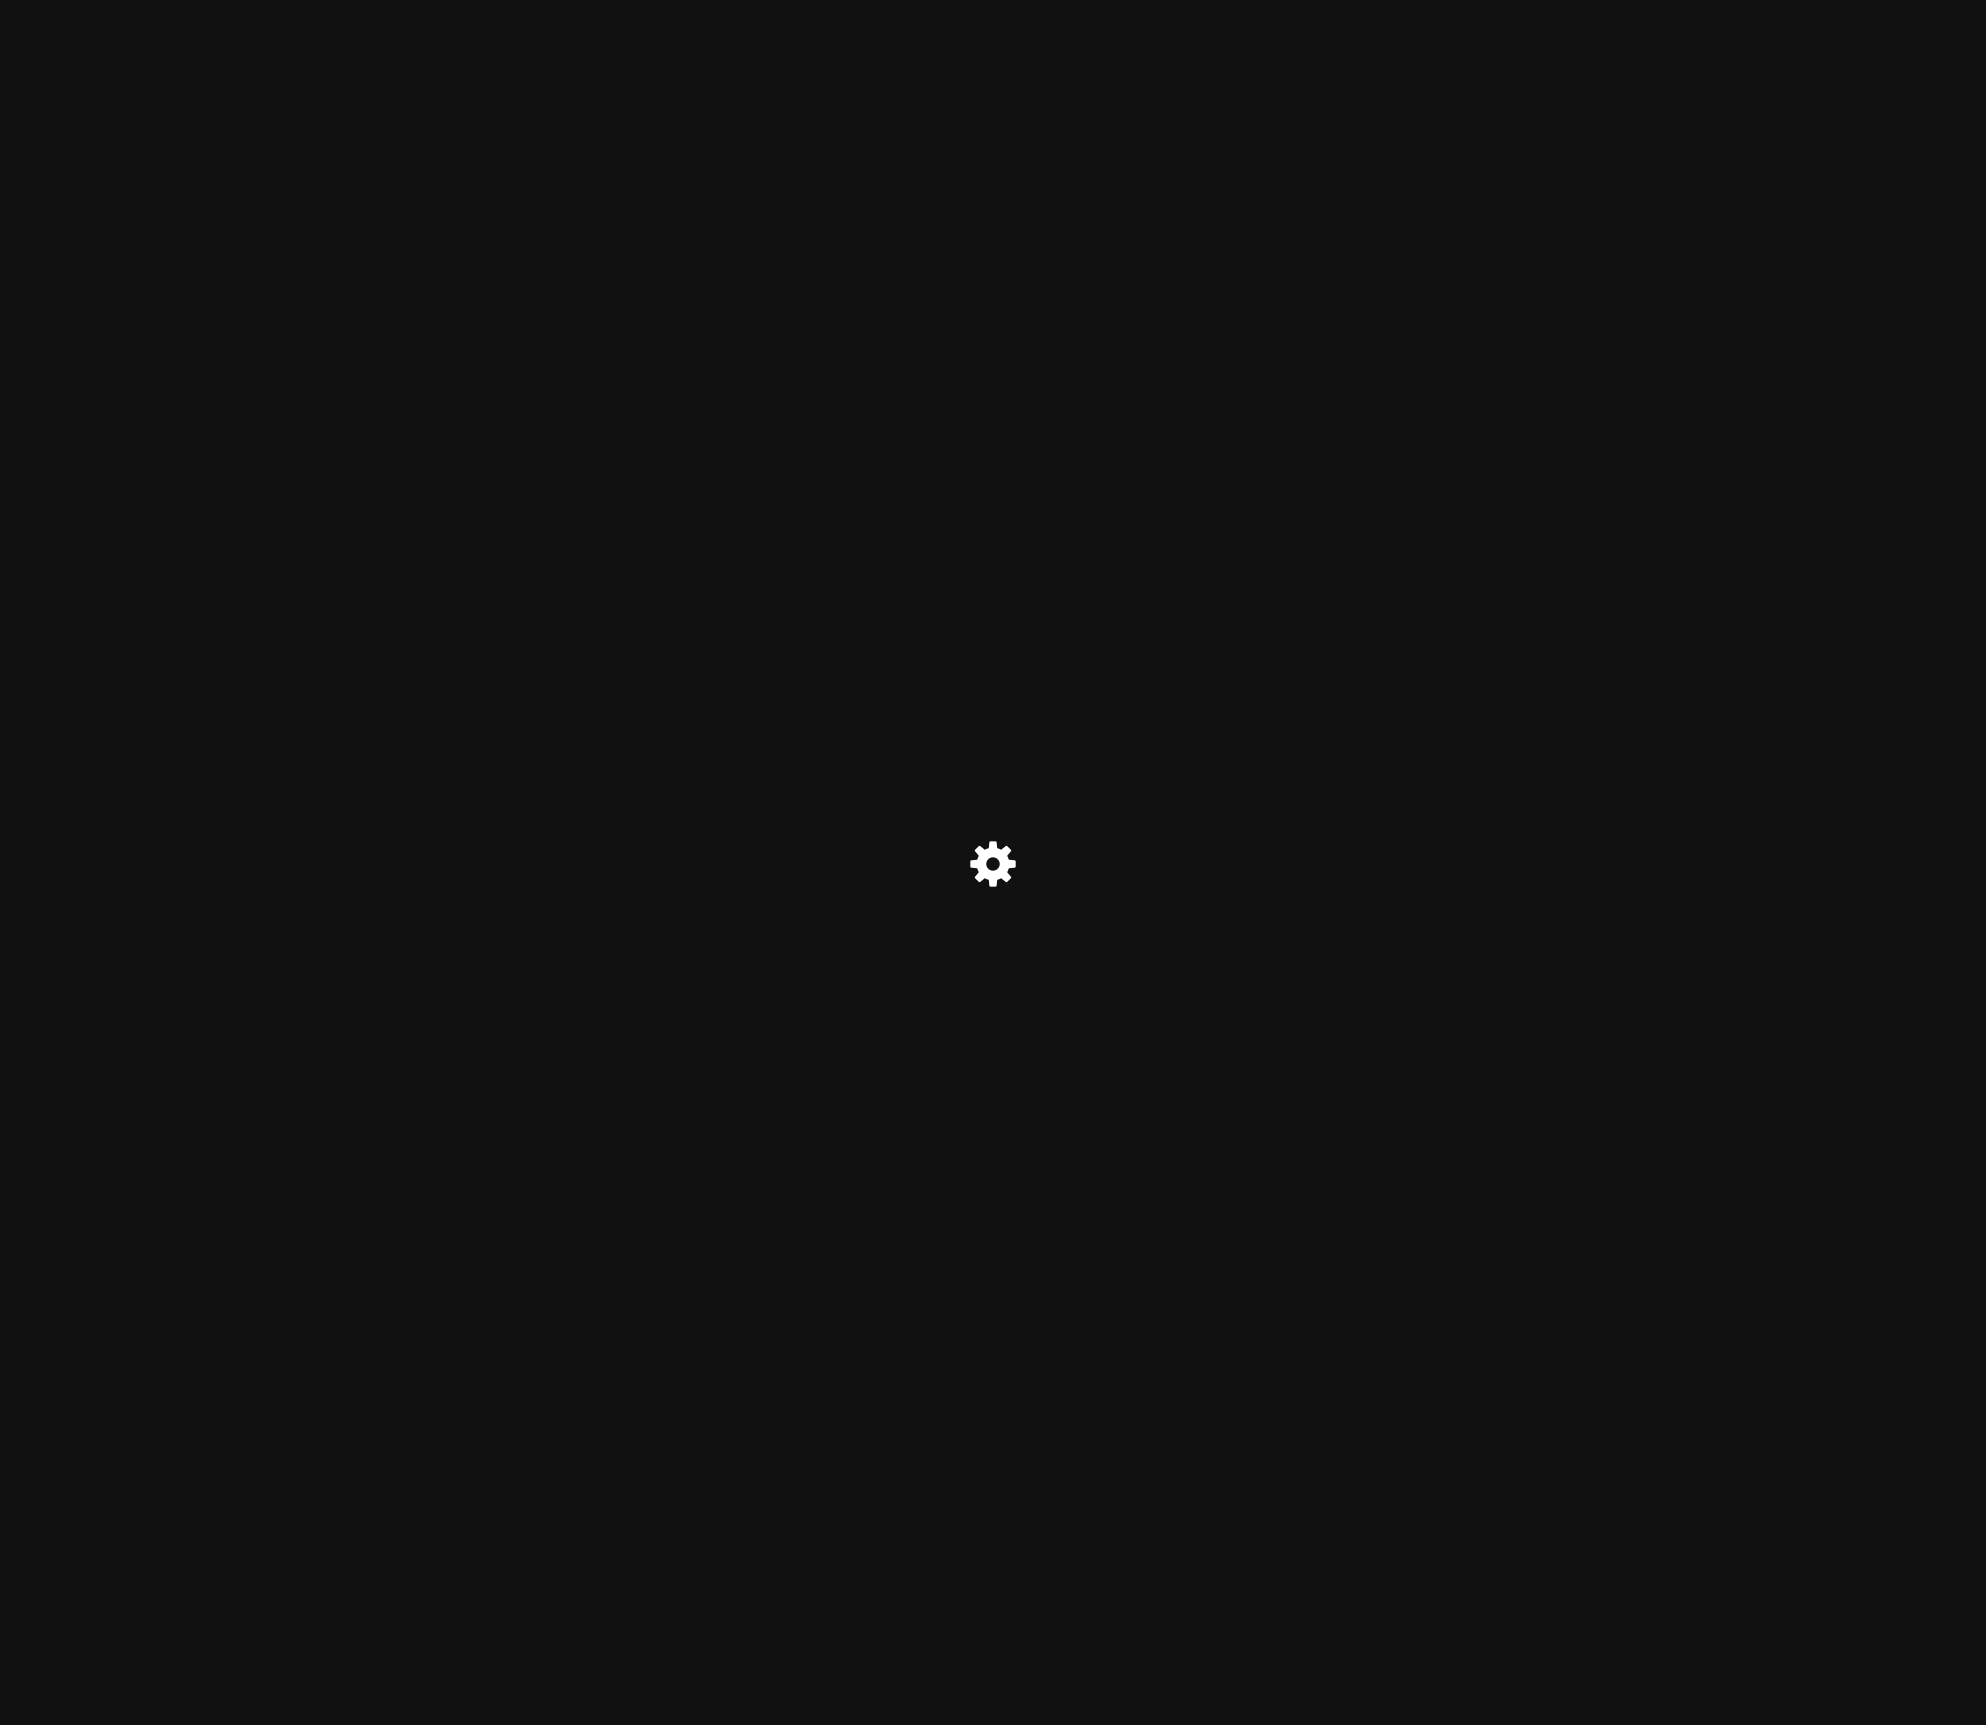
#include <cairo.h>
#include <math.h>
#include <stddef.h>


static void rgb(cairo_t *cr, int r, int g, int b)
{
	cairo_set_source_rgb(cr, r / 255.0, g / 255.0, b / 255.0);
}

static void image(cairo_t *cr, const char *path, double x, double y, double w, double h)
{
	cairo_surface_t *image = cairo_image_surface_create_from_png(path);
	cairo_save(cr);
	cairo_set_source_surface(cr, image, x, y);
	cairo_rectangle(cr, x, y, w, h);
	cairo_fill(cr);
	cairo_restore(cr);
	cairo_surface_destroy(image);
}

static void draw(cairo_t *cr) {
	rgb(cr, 17, 17, 17);
	cairo_paint(cr);
	image(cr, "image0.png", 970, 841, 46, 46);
}

int main(void) {
	cairo_surface_t *surface = cairo_image_surface_create(CAIRO_FORMAT_RGB24, 1986, 1725);
	cairo_t *cr = cairo_create(surface);
	cairo_font_options_t *options = cairo_font_options_create();
	cairo_font_options_set_hint_metrics(options, CAIRO_HINT_METRICS_OFF);
	cairo_font_options_set_hint_style(options, CAIRO_HINT_STYLE_NONE);
	cairo_set_font_options(cr, options);
	cairo_set_miter_limit(cr, 4);
	draw(cr);
	cairo_surface_write_to_png(surface, "render.png");
	cairo_font_options_destroy(options);
	cairo_destroy(cr);
	cairo_surface_destroy(surface);
	return 0;
}
